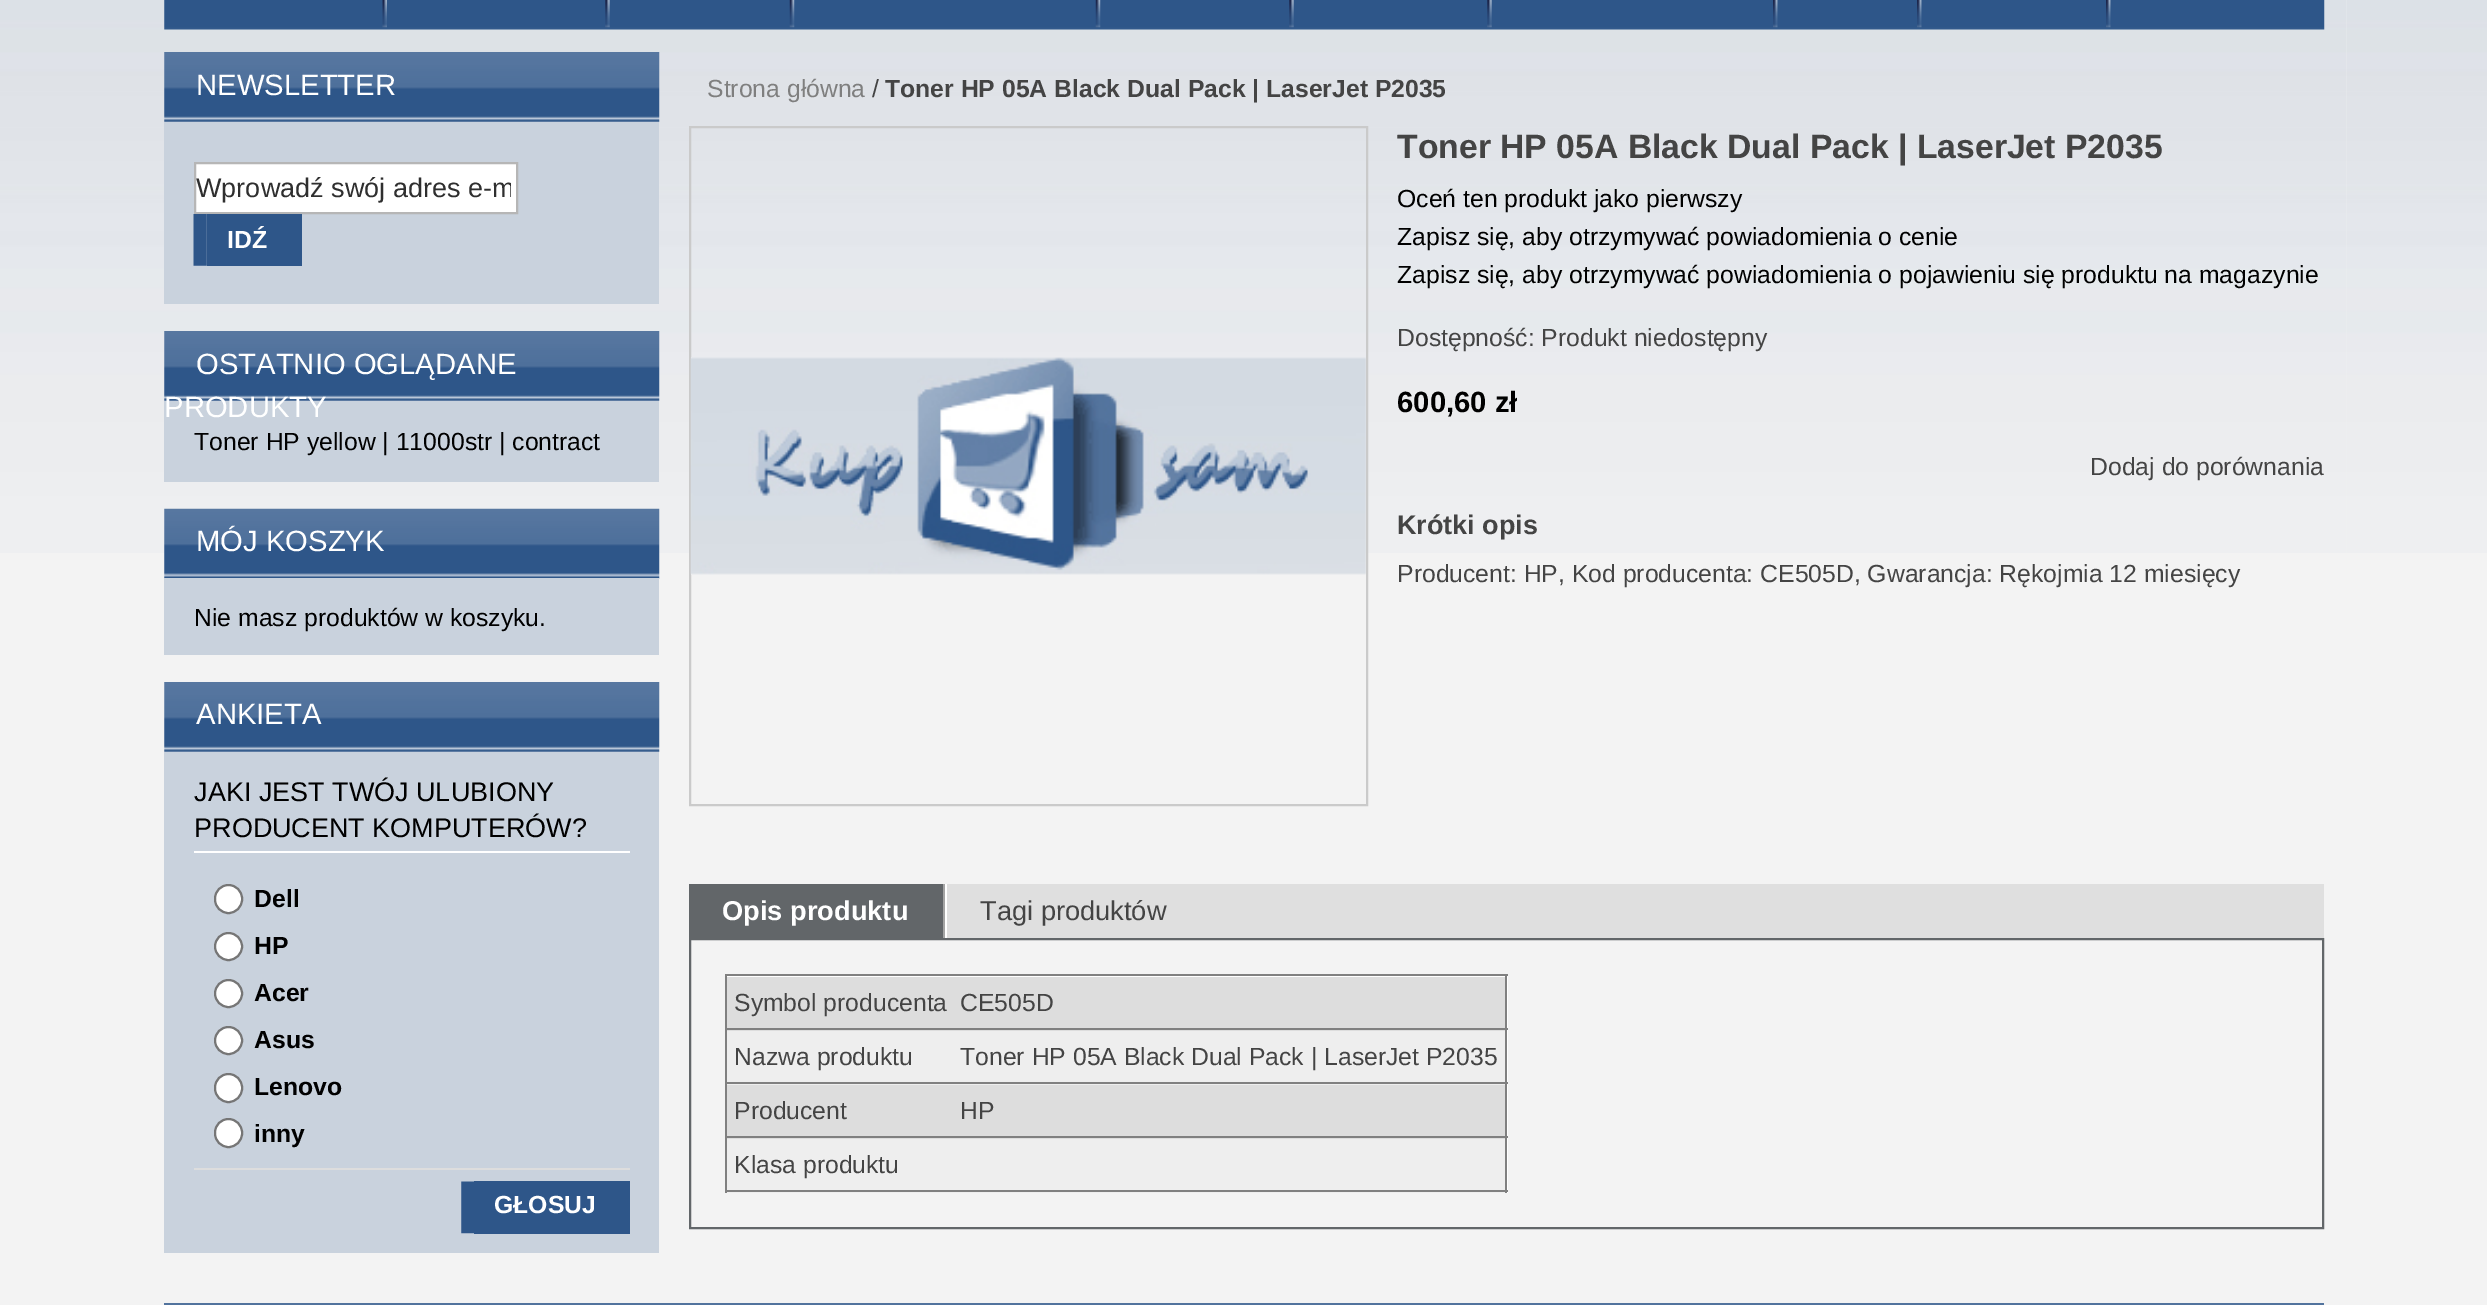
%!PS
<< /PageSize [2487 1305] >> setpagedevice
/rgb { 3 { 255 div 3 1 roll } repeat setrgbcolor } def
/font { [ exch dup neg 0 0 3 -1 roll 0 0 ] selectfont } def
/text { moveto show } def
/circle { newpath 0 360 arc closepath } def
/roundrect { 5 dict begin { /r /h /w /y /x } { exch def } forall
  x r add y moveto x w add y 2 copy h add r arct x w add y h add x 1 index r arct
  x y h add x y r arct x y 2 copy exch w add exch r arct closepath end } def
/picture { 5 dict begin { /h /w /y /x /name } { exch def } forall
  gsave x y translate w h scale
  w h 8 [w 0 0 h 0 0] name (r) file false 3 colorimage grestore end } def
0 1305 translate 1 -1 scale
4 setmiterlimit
243 243 243 rgb
0 0 2487 1305 rectfill
(img_01.rgb) 0 0 2487 553 picture
142 0 2205 553 rectfill
(img_02.rgb) 142 0 2205 553 picture
(img_03.rgb) 164 0 2161 30 picture
(img_04.rgb) 382 0 5 28 picture
(img_05.rgb) 605 0 5 28 picture
(img_06.rgb) 789 0 6 28 picture
(img_06.rgb) 1095 0 6 28 picture
(img_05.rgb) 1289 0 5 28 picture
(img_05.rgb) 1487 0 5 28 picture
(img_07.rgb) 1773 0 5 28 picture
(img_07.rgb) 1917 0 5 28 picture
(img_07.rgb) 2106 0 5 28 picture
(img_08.rgb) 164 52 496 70 picture
201 210 221 rgb
164 122 495 182 rectfill
255 255 255 rgb
195 163 moveto 322 0 rlineto 0 50 rlineto -322 0 rlineto closepath gsave fill grestore
182 182 182 rgb
2 setlinewidth
stroke
(img_09.rgb) 193 214 14 52 picture
46 86 137 rgb
207 214 95 52 rectfill
(img_10.rgb) 164 331 496 70 picture
201 210 221 rgb
164 401 495 81 rectfill
(img_11.rgb) 164 508 496 71 picture
164 578 495 77 rectfill
(img_12.rgb) 164 682 496 70 picture
164 752 495 501 rectfill
255 255 255 rgb
194 851 436 2 rectfill
215 885 27 28 13.5 roundrect gsave fill grestore
118 118 118 rgb
stroke
255 255 255 rgb
228.5 946.5 13.5 circle gsave fill grestore
118 118 118 rgb
stroke
255 255 255 rgb
228.5 993.5 13.5 circle gsave fill grestore
118 118 118 rgb
stroke
255 255 255 rgb
228.5 1040.5 13.5 circle gsave fill grestore
118 118 118 rgb
stroke
255 255 255 rgb
215 1074 27 28 13.5 roundrect gsave fill grestore
118 118 118 rgb
stroke
255 255 255 rgb
215 1119 27 28 13.5 roundrect gsave fill grestore
118 118 118 rgb
stroke
221 221 221 rgb
194 1168 436 2 rectfill
(img_13.rgb) 461 1181 13 53 picture
46 86 137 rgb
474 1181 156 53 rectfill
202 202 202 rgb
690 127 677 678 rectstroke
(img_14.rgb) 690 357 676 218 picture
223 223 223 rgb
947 884 1377 54 rectfill
164 164 164 rgb
943 884 2 54 rectfill
98 102 105 rgb
689 884 254 54 rectfill
255 255 255 rgb
945 884 2 54 rectfill
98 102 105 rgb
690 939 1633 289 rectstroke
255 255 255 rgb
727 976 781 217 rectfill
221 221 221 rgb
727 977 778 54 rectfill
128 128 128 rgb
725 974 783 2 rectfill
725 1028 783 2 rectfill
238 238 238 rgb
727 1031 778 54 rectfill
128 128 128 rgb
725 1082 783 2 rectfill
221 221 221 rgb
727 1085 778 54 rectfill
128 128 128 rgb
725 1136 783 2 rectfill
1505 1136 2 57 rectfill
1505 1082 2 57 rectfill
1505 1028 2 57 rectfill
1505 974 2 57 rectfill
238 238 238 rgb
727 1139 778 54 rectfill
128 128 128 rgb
725 1190 783 2 rectfill
725 1136 2 57 rectfill
725 1082 2 57 rectfill
725 1028 2 57 rectfill
725 974 2 57 rectfill
82 115 157 rgb
164 1303 2160 2 rectfill
/LiberationSans-Regular 29.25 font
255 255 255 rgb
(NEWSLETTER) 196 95 text
gsave
196 173 315 32 rectclip
/LiberationSans-Regular 27 font
47 47 47 rgb
(Wprowadź swój adres e-m) 196 197 text
grestore
/LiberationSans-Bold 24.75 font
(IDŹ) 227 248 text
/LiberationSans-Regular 29.25 font
(OSTATNIO OGLĄDANE) 196 374 text
(PRODUKTY) 164 417 text
/LiberationSans-Regular 24.75 font
0 0 0 rgb
(Toner HP yellow | 11000str | contract) 194 450 text
/LiberationSans-Regular 29.25 font
255 255 255 rgb
(MÓJ KOSZYK) 196 551 text
/LiberationSans-Regular 24.75 font
0 0 0 rgb
(Nie masz produktów w koszyku.) 194 626 text
/LiberationSans-Regular 29.25 font
255 255 255 rgb
(ANKIETA) 196 724 text
/LiberationSans-Regular 27 font
0 0 0 rgb
(JAKI JEST TWÓJ ULUBIONY) 194 801 text
(PRODUCENT KOMPUTERÓW?) 194 837 text
/LiberationSans-Bold 24.75 font
(Dell) 254 907 text
(HP) 254 954 text
(Acer) 254 1001 text
(Asus) 254 1048 text
(Lenovo) 254 1095 text
(inny) 254 1142 text
255 255 255 rgb
(GŁOSUJ) 494 1213 text
/LiberationSans-Regular 24.75 font
127 127 127 rgb
(Strona główna) 707 97 text
68 68 68 rgb
(/) 872 97 text
/LiberationSans-Bold 24.75 font
(Toner HP 05A Black Dual Pack | LaserJet P2035) 885 97 text
/LiberationSans-Bold 33.75 font
(Toner HP 05A Black Dual Pack | LaserJet P2035) 1397 158 text
/LiberationSans-Regular 24.75 font
0 0 0 rgb
(Oceń ten produkt jako pierwszy) 1397 207 text
(Zapisz się, aby otrzymywać powiadomienia o cenie) 1397 245 text
(Zapisz się, aby otrzymywać powiadomienia o pojawieniu się produktu na magazynie) 1397 283 text
68 68 68 rgb
(Dostępność: Produkt niedostępny) 1397 346 text
/LiberationSans-Bold 29.25 font
0 0 0 rgb
(600,60 zł) 1397 412 text
/LiberationSans-Regular 24.75 font
68 68 68 rgb
(Dodaj do porównania) 2090 475 text
/LiberationSans-Bold 27 font
(Krótki opis) 1397 534 text
/LiberationSans-Regular 24.75 font
(Producent: HP, Kod producenta: CE505D, Gwarancja: Rękojmia 12 miesięcy) 1397 582 text
/LiberationSans-Bold 27.25 font
255 255 255 rgb
(Opis produktu) 722 920 text
/LiberationSans-Regular 27.25 font
68 68 68 rgb
(Tagi produktów) 980 920 text
/LiberationSans-Regular 24.75 font
(Symbol producenta) 734 1011 text
(CE505D) 960 1011 text
(Nazwa produktu) 734 1065 text
(Toner HP 05A Black Dual Pack | LaserJet P2035) 960 1065 text
(Producent) 734 1119 text
(HP) 960 1119 text
(Klasa produktu) 734 1173 text
showpage
